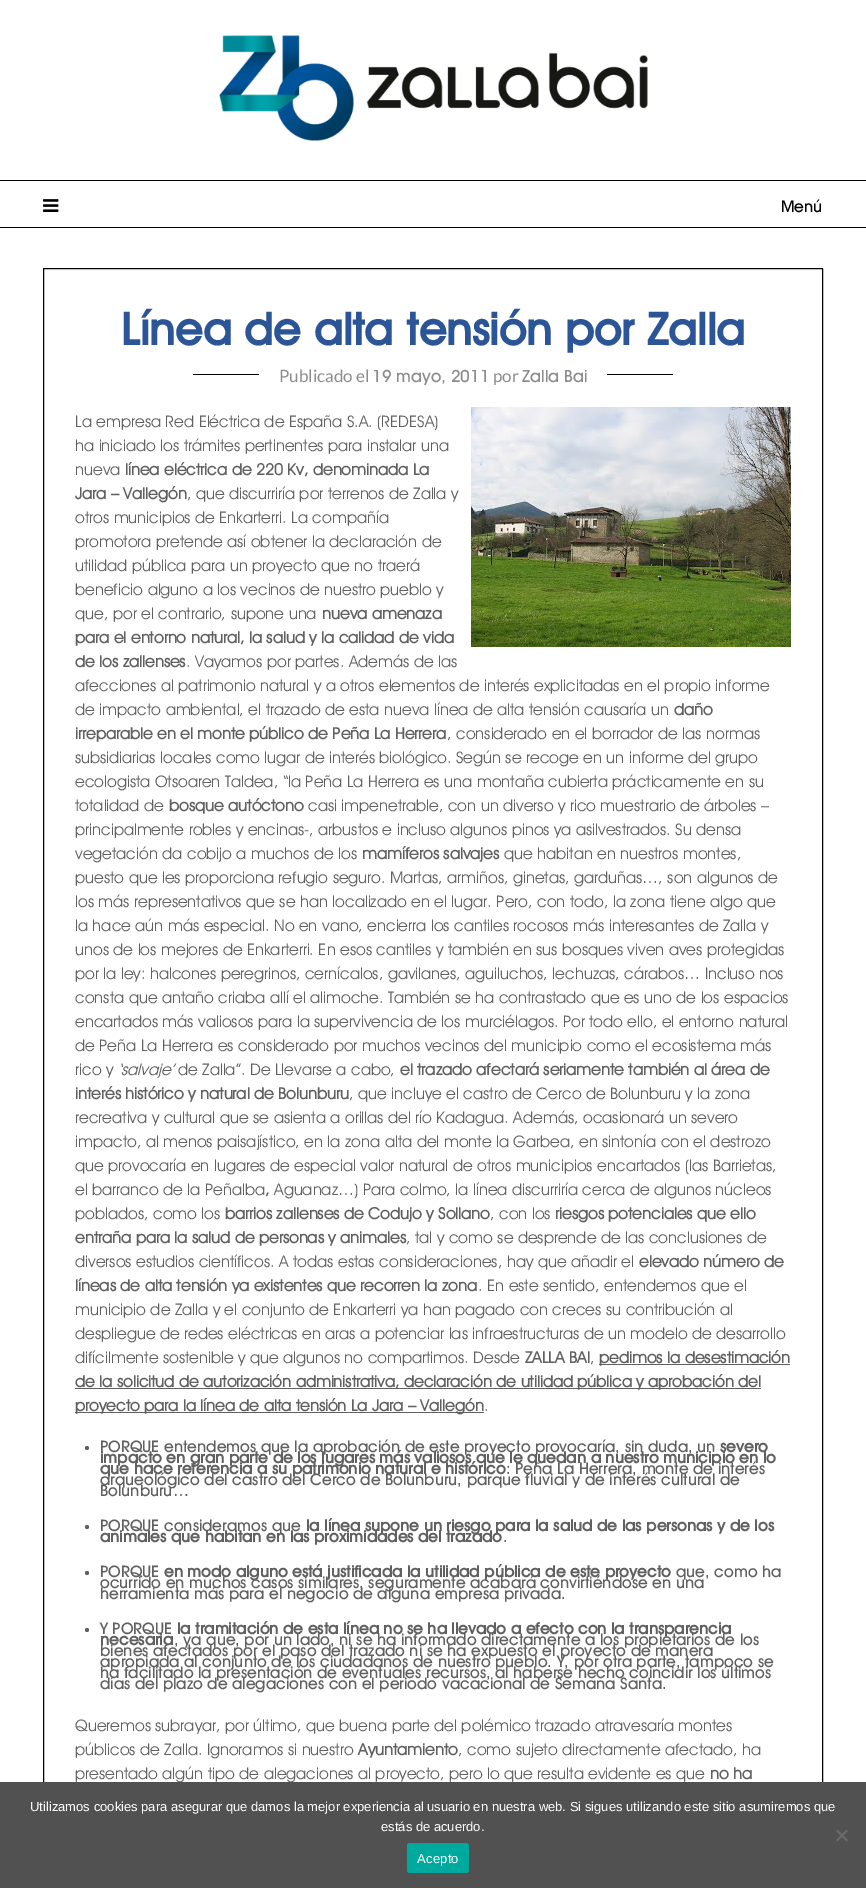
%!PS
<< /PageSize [866 1888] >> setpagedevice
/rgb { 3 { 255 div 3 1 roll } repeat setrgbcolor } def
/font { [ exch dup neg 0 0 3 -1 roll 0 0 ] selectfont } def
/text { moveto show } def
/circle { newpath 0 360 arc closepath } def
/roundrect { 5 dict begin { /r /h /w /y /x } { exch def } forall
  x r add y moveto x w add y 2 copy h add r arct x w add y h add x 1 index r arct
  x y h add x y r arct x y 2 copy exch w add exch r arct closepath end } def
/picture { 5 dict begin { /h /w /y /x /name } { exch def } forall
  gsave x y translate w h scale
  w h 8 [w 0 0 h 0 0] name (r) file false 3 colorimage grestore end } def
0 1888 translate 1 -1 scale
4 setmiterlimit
255 255 255 rgb
0 0 866 1888 rectfill
(img_01.rgb) 219 35 429 106 picture
0 0 0 rgb
0 180 866 1 rectfill
0 227 866 1 rectfill
(img_02.rgb) 43 199 16 13 picture
43.5 268.5 779 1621 0.5 roundrect stroke
193 374 480 1 rectfill
255 255 255 rgb
259 374 348 1 rectfill
(img_03.rgb) 471 407 320 240 picture
96 96 96 rgb
599 1364 191 1 rectfill
75 1388 686 1 rectfill
75 1412 409 1 rectfill
87 1448 2 circle fill
87 1527 2 circle fill
87 1573 2 circle fill
87 1630 2 circle fill
/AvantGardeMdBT-Medium 16 font
0 0 0 rgb
(Menú) 781 212 text
/AvantGardeMdBT-Bold 45 font
43 85 151 rgb
(Línea de alta tensión por Zalla) 121 345 text
/Lato-Regular 17 font
140 140 140 rgb
(Publicado el) 279 382 text
/AvantGardeMdBT-Medium 17 font
(19 mayo, 2011) 372 382 text
/Lato-Regular 17 font
(por) 493 382 text
/AvantGardeMdBT-Medium 17 font
(Zalla Bai) 522 382 text
/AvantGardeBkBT-Regular 16 font
96 96 96 rgb
(La empresa Red Eléctrica de España S.A. \(REDESA\)) 75 427 text
(ha iniciado los trámites pertinentes para instalar una) 75 451 text
(nueva) 75 475 text
/AvantGardeBkBT-Bold 16 font
(línea eléctrica de 220 Kv, denominada La) 125 475 text
(Jara – Vallegón) 75 499 text
/AvantGardeBkBT-Regular 16 font
(, que discurriría por terrenos de Zalla y) 187 499 text
(otros municipios de Enkarterri. La compañía) 75 523 text
(promotora pretende así obtener la declaración de) 75 547 text
(utilidad pública para un proyecto que no traerá) 75 571 text
(beneficio alguno a los vecinos de nuestro pueblo y) 75 595 text
(que, por el contrario, supone una) 75 619 text
/AvantGardeBkBT-Bold 16 font
(nueva amenaza) 322 619 text
(para el entorno natural, la salud y la calidad de vida) 75 643 text
(de los zallenses) 75 667 text
/AvantGardeBkBT-Regular 16 font
(. Vayamos por partes. Además de las) 186 667 text
(afecciones al patrimonio natural y a otros elementos de interés explicitadas en el propio informe) 75 691 text
(de impacto ambiental, el trazado de esta nueva línea de alta tensión causaría un) 75 715 text
/AvantGardeBkBT-Bold 16 font
(daño) 674 715 text
(irreparable en el monte público de Peña La Herrera) 75 739 text
/AvantGardeBkBT-Regular 16 font
(, considerado en el borrador de las normas) 447 739 text
(subsidiarias locales como lugar de interés biológico. Según se recoge en un informe del grupo) 75 763 text
(ecologista Otsoaren Taldea, “la Peña La Herrera es una montaña cubierta prácticamente en su) 75 787 text
(totalidad de) 75 811 text
/AvantGardeBkBT-Bold 16 font
(bosque autóctono) 169 811 text
/AvantGardeBkBT-Regular 16 font
(casi impenetrable, con un diverso y rico muestrario de árboles –) 308 811 text
(principalmente robles y encinas-, arbustos e incluso algunos pinos ya asilvestrados. Su densa) 75 835 text
(vegetación da cobijo a muchos de los) 75 859 text
/AvantGardeBkBT-Bold 16 font
(mamíferos salvajes) 362 859 text
/AvantGardeBkBT-Regular 16 font
(que habitan en nuestros montes,) 504 859 text
(puesto que les proporciona refugio seguro. Martas, armiños, ginetas, garduñas…, son algunos de) 75 883 text
(los más representativos que se han localizado en el lugar. Pero, con todo, la zona tiene algo que) 75 907 text
(la hace aún más especial. No en vano, encierra los cantiles rocosos más interesantes de Zalla y) 75 931 text
(unos de los mejores de Enkarterri. En esos cantiles y también en sus bosques viven aves protegidas) 75 955 text
(por la ley: halcones peregrinos, cernícalos, gavilanes, aguiluchos, lechuzas, cárabos… Incluso nos) 75 979 text
(consta que antaño criaba allí el alimoche. También se ha contrastado que es uno de los espacios) 75 1003 text
(encartados más valiosos para la supervivencia de los murciélagos. Por todo ello, el entorno natural) 75 1027 text
(de Peña La Herrera es considerado por muchos vecinos del municipio como el ecosistema más) 75 1051 text
(rico y) 75 1075 text
/AvantGardeBkBT-Italic 16 font
(‘salvaje’) 118 1075 text
/AvantGardeBkBT-Regular 16 font
(de Zalla”. De Llevarse a cabo,) 178 1075 text
/AvantGardeBkBT-Bold 16 font
(el trazado afectará seriamente también al área de) 400 1075 text
(interés histórico y natural de Bolunburu) 75 1099 text
/AvantGardeBkBT-Regular 16 font
(, que incluye el castro de Cerco de Bolunburu y la zona) 349 1099 text
(recreativa y cultural que se asienta a orillas del río Kadagua. Además, ocasionará un severo) 75 1123 text
(impacto, al menos paisajístico, en la zona alta del monte la Garbea, en sintonía con el destrozo) 75 1147 text
(que provocaría en lugares de especial valor natural de otros municipios encartados \(las Barrietas,) 75 1171 text
(el barranco de la Peñalba) 75 1195 text
/AvantGardeBkBT-Bold 16 font
(,) 265 1195 text
/AvantGardeBkBT-Regular 16 font
(Aguanaz…\) Para colmo, la línea discurriría cerca de algunos núcleos) 274 1195 text
(poblados, como los) 75 1219 text
/AvantGardeBkBT-Bold 16 font
(barrios zallenses de Codujo y Sollano) 225 1219 text
/AvantGardeBkBT-Regular 16 font
(, con los) 490 1219 text
/AvantGardeBkBT-Bold 16 font
(riesgos potenciales que ello) 555 1219 text
(entraña para la salud de personas y animales) 75 1243 text
/AvantGardeBkBT-Regular 16 font
(, tal y como se desprende de las conclusiones de) 406 1243 text
(diversos estudios científicos. A todas estas consideraciones, hay que añadir el) 75 1267 text
/AvantGardeBkBT-Bold 16 font
(elevado número de) 639 1267 text
(líneas de alta tensión ya existentes que recorren la zona) 75 1291 text
/AvantGardeBkBT-Regular 16 font
(. En este sentido, entendemos que el) 478 1291 text
(municipio de Zalla y el conjunto de Enkarterri ya han pagado con creces su contribución al) 75 1315 text
(despliegue de redes eléctricas en aras a potenciar las infraestructuras de un modelo de desarrollo) 75 1339 text
(difícilmente sostenible y que algunos no compartimos. Desde) 75 1363 text
/AvantGardeBkBT-Bold 16 font
(ZALLA BAI) 525 1363 text
/AvantGardeBkBT-Regular 16 font
(,) 590 1363 text
/AvantGardeBkBT-Bold 16 font
(pedimos la desestimación) 599 1363 text
(de la solicitud de autorización administrativa, declaración de utilidad pública y aprobación del) 75 1387 text
(proyecto para la línea de alta tensión La Jara – Vallegón) 75 1411 text
/AvantGardeBkBT-Regular 16 font
(.) 484 1411 text
/AvantGardeMdBT-Medium 16 font
(PORQUE entendemos que la aprobación de este proyecto provocaría, sin duda, un) 100 1452 text
/AvantGardeMdBT-Bold 16 font
(severo) 720 1452 text
(impacto en gran parte de los lugares más valiosos que le quedan a nuestro municipio en lo) 100 1463 text
(que hace referencia a su patrimonio natural e histórico) 100 1474 text
/AvantGardeMdBT-Medium 16 font
(: Peña La Herrera, monte de interés) 506 1474 text
(arqueológico del castro del Cerco de Bolunburu, parque fluvial y de interés cultural de) 100 1485 text
(Bolunburu…) 100 1496 text
(PORQUE consideramos que) 100 1531 text
/AvantGardeMdBT-Bold 16 font
(la línea supone un riesgo para la salud de las personas y de los) 306 1531 text
(animales que habitan en las proximidades del trazado) 100 1542 text
/AvantGardeMdBT-Medium 16 font
(.) 503 1542 text
(PORQUE) 100 1577 text
/AvantGardeMdBT-Bold 16 font
(en modo alguno está justificada la utilidad pública de este proyecto) 164 1577 text
/AvantGardeMdBT-Medium 16 font
(que, como ha) 676 1577 text
(ocurrido en muchos casos similares, seguramente acabará convirtiéndose en una) 100 1588 text
(herramienta más para el negocio de alguna empresa privada.) 100 1599 text
(Y PORQUE) 100 1634 text
/AvantGardeMdBT-Bold 16 font
(la tramitación de esta línea no se ha llevado a efecto con la transparencia) 177 1634 text
(necesaria) 100 1645 text
/AvantGardeMdBT-Medium 16 font
(, ya que, por un lado, ni se ha informado directamente a los propietarios de los) 174 1645 text
(bienes afectados por el paso del trazado ni se ha expuesto el proyecto de manera) 100 1656 text
(apropiada al conjunto de los ciudadanos de nuestro pueblo. Y, por otra parte, tampoco se) 100 1667 text
(ha facilitado la presentación de eventuales recursos, al haberse hecho coincidir los últimos) 100 1678 text
(días del plazo de alegaciones con el periodo vacacional de Semana Santa.) 100 1689 text
/AvantGardeBkBT-Regular 16 font
(Queremos subrayar, por último, que buena parte del polémico trazado atravesaría montes) 75 1731 text
(públicos de Zalla. Ignoramos si nuestro) 75 1755 text
/AvantGardeBkBT-Bold 16 font
(Ayuntamiento) 358 1755 text
/AvantGardeBkBT-Regular 16 font
(, como sujeto directamente afectado, ha) 458 1755 text
(presentado algún tipo de alegaciones al proyecto, pero lo que resulta evidente es que) 75 1779 text
/AvantGardeBkBT-Bold 16 font
(no ha) 710 1779 text
81 81 81 rgb
0 1782 866 106 rectfill
/LiberationSans-Regular 13 font
255 255 255 rgb
(Utilizamos cookies para asegurar que damos la mejor experiencia al usuario en nuestra web. Si sigues utilizando este sitio asumiremos que) 30 1811 text
(estás de acuerdo.) 381 1831 text
105 105 105 rgb
846.5 1829.5 moveto 1.5 1.5 rlineto -10.5 10.5 rlineto -1.5 -1.5 rlineto closepath fill
836 1831 moveto 1.5 -1.5 rlineto 10.5 10.5 rlineto -1.5 1.5 rlineto closepath fill
0 169 157 rgb
407 1843 62 30 3 roundrect fill
255 255 255 rgb
417 1863 moveto 0.25 0 (Acepto) ashow
showpage
